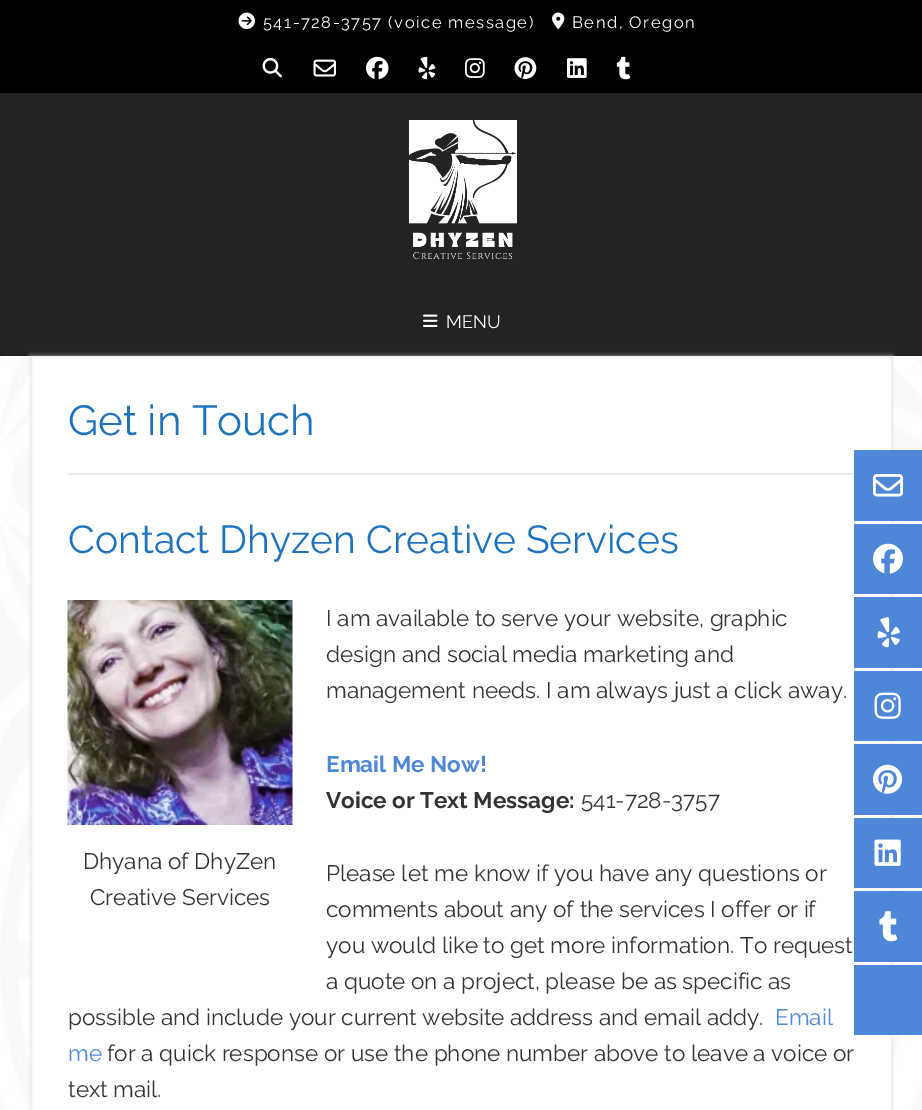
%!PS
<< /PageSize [922 1110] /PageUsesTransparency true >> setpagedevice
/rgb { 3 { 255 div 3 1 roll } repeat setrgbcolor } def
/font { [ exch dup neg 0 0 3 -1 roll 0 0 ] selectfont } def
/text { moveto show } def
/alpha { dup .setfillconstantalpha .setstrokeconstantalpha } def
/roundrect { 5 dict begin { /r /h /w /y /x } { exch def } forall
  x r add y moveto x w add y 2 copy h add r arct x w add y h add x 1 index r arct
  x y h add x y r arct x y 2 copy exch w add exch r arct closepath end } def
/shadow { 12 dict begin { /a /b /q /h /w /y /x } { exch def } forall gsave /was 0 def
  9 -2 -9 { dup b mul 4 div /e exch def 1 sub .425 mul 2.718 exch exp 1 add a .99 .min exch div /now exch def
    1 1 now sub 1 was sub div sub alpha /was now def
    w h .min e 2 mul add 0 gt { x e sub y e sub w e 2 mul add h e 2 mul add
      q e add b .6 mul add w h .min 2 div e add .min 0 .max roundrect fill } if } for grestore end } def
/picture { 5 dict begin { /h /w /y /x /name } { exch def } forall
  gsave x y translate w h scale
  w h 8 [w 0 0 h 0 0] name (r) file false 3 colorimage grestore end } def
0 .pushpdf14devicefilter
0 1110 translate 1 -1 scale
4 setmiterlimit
255 255 255 rgb
0 0 922 1110 rectfill
(img_01.rgb) 0 356 922 754 picture
0 0 0 rgb
0 0 922 93 rectfill
(img_02.rgb) 238 12 17 18 picture
(img_03.rgb) 552 12 13 17 picture
35 35 35 rgb
0 93 922 261 rectfill
0.08 alpha
0 0 0 rgb
0 93 922 1 rectfill
1 alpha
(img_04.rgb) 262 57 20 21 picture
(img_05.rgb) 313 59 23 18 picture
(img_06.rgb) 366 56 23 24 picture
(img_07.rgb) 418 56 18 24 picture
(img_08.rgb) 465 58 20 20 picture
(img_09.rgb) 514 57 23 22 picture
(img_10.rgb) 567 58 20 20 picture
(img_11.rgb) 616 56 15 24 picture
32 32 32 rgb
0 354 922 2 rectfill
0 290 moveto 0 1 rlineto 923 0 rlineto 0 -196 rlineto -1 0 rlineto 0 195 rlineto closepath fill
(img_12.rgb) 408 120 109 140 picture
(img_13.rgb) 423 314 15 13 picture
238 238 238 rgb
30 356 863 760 0 2 0.72 shadow
255 255 255 rgb
31 357 moveto 861 0 rlineto 0 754 rlineto -861 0 rlineto closepath gsave fill grestore
240 240 240 rgb
2 setlinewidth
stroke
235 235 235 rgb
68 473 787 2 rectfill
(img_14.rgb) 67 600 226 225 picture
78 135 216 rgb
854 450 68 71 rectfill
(img_15.rgb) 873 474 30 23 picture
854 524 68 70 rectfill
(img_16.rgb) 873 543 30 31 picture
854 597 68 71 rectfill
(img_17.rgb) 877 617 23 31 picture
854 671 68 70 rectfill
(img_18.rgb) 874 692 27 27 picture
854 744 68 71 rectfill
(img_19.rgb) 873 764 30 30 picture
854 818 68 70 rectfill
(img_20.rgb) 874 839 27 27 picture
854 891 68 71 rectfill
(img_21.rgb) 879 911 19 31 picture
854 965 68 70 rectfill
/Raleway-Regular 16.5 font
255 255 255 rgb
263 28 moveto 1.5 0 (541-728-3757 \(voice message\)) ashow
572 28 moveto 1.5 0 (Bend, Oregon) ashow
/Raleway-Regular 18 font
(MENU) 446 328 text
/Raleway-Regular 42 font
30 115 190 rgb
(Get in Touch) 68 435 text
/Raleway-Regular 39 font
(Contact Dhyzen Creative Services) 68 553 text
/Raleway-Regular 22.5 font
51 51 51 rgb
(I am available to serve your website, graphic) 326 626 text
(design and social media marketing and) 326 662 text
(management needs. I am always just a click away.) 326 698 text
/Raleway-Bold 22.5 font
78 135 216 rgb
(Email Me Now!) 326 772 text
51 51 51 rgb
(Voice or Text Message:) 326 808 text
/Raleway-Regular 22.5 font
(541-728-3757) 581 808 text
(Dhyana of DhyZen) 83 869 text
(Creative Services) 90 905 text
(Please let me know if you have any questions or) 326 881 text
(comments about any of the services I offer or if) 326 917 text
(you would like to get more information. To request) 326 953 text
(a quote on a project, please be as specific as) 326 989 text
(possible and include your current website address and email addy.) 68 1025 text
78 135 216 rgb
(Email) 775 1025 text
(me) 68 1061 text
51 51 51 rgb
(for a quick response or use the phone number above to leave a voice or) 107 1061 text
(text mail.) 68 1097 text
.poppdf14devicefilter showpage
